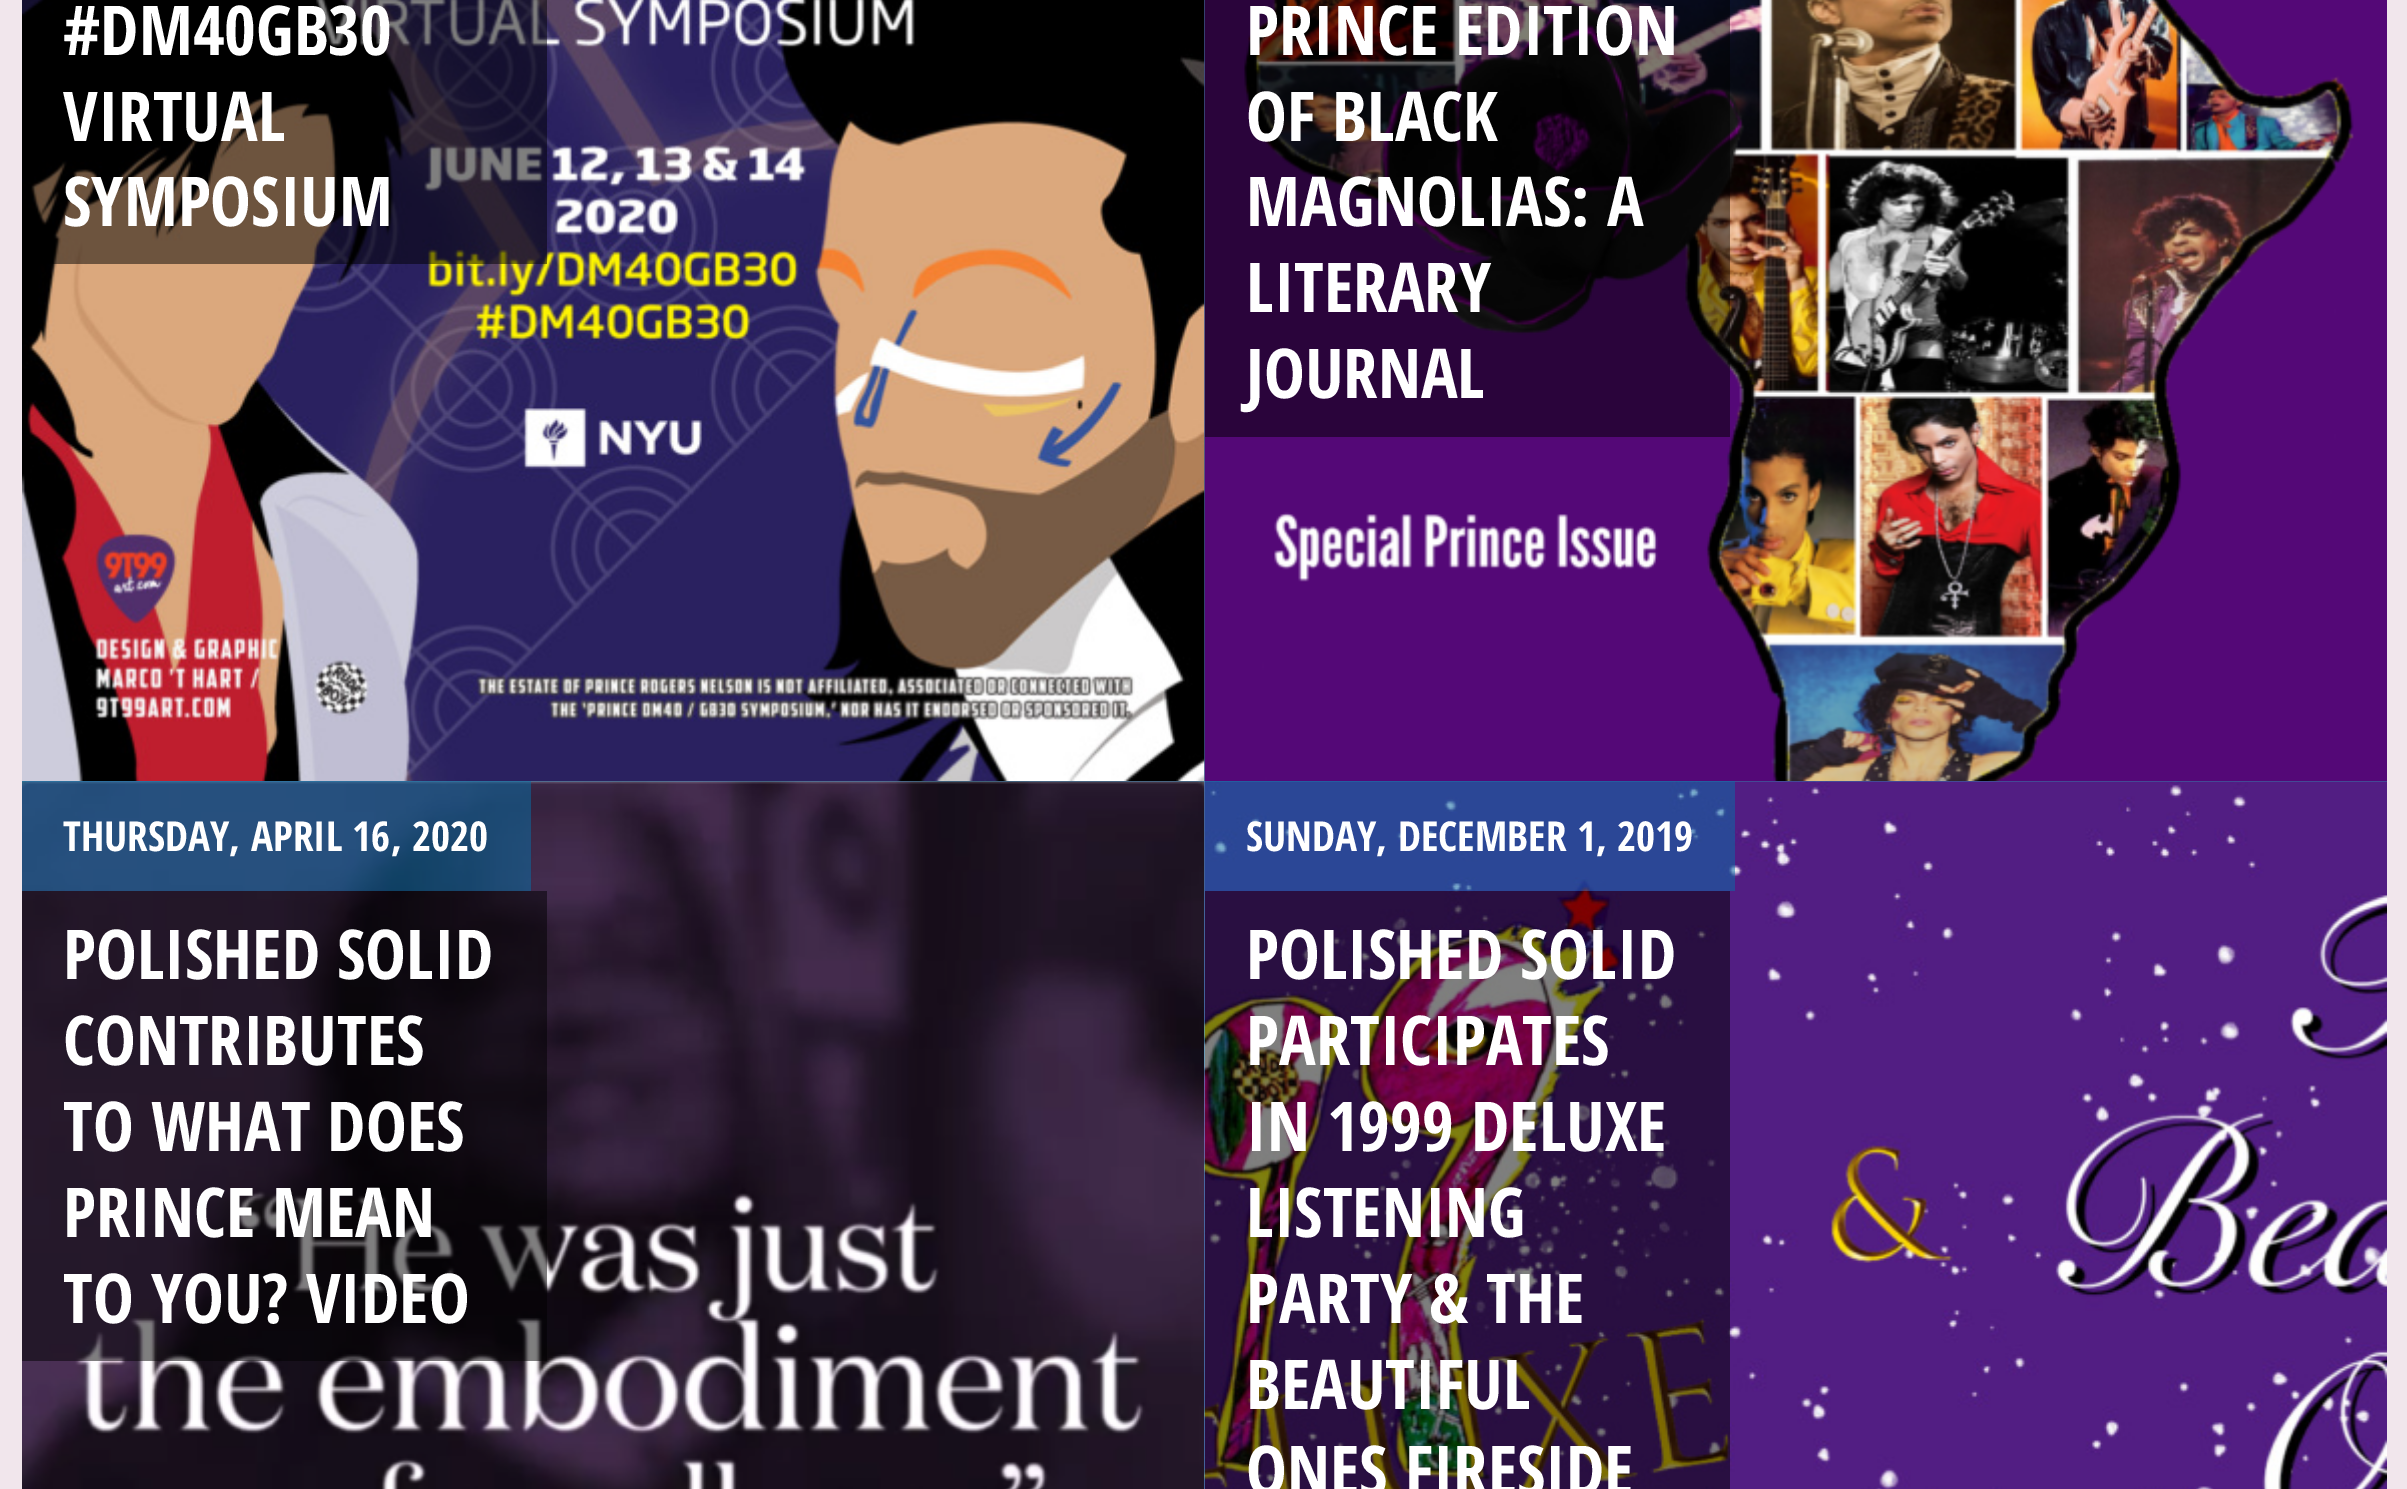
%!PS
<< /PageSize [2407 1489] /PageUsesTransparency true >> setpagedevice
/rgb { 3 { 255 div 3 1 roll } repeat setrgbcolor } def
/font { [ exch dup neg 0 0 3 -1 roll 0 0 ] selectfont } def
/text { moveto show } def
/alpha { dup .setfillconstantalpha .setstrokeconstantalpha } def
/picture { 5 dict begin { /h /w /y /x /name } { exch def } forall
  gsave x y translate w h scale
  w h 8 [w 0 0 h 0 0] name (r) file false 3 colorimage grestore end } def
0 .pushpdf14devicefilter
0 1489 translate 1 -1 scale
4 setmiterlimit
241 230 236 rgb
0 0 2407 1489 rectfill
55 113 143 rgb
1204 0 1 781 rectfill
(img_01.rgb) 22 0 1183 781 picture
0.5 alpha
0 0 0 rgb
22 0 525 264 rectfill
1 alpha
(img_02.rgb) 1204 0 1183 781 picture
0.5 alpha
1205 0 525 437 rectfill
1 alpha
73 157 201 rgb
22 781 1183 708 rectfill
(img_03.rgb) 22 781 1183 708 picture
0.5 alpha
5 112 168 rgb
22 781 509 110 rectfill
0 0 0 rgb
22 891 525 470 rectfill
1 alpha
51 131 173 rgb
1205 781 1182 1 rectfill
(img_04.rgb) 1204 781 1183 708 picture
0.5 alpha
5 112 168 rgb
1205 781 530 110 rectfill
0 0 0 rgb
1205 891 525 598 rectfill
/OpenSansCondensed-Bold 68.75 font
1 alpha
255 255 255 rgb
(#DM40GB30) 63 55 text
(VIRTUAL) 63 141 text
(SYMPOSIUM) 63 226 text
(PRINCE EDITION) 1246 55 text
(OF BLACK) 1246 141 text
(MAGNOLIAS: A) 1246 226 text
(LITERARY) 1246 312 text
(JOURNAL) 1246 398 text
/OpenSansCondensed-Bold 41.25 font
(THURSDAY, APRIL 16, 2020) 63 851 text
/OpenSansCondensed-Bold 68.75 font
(POLISHED SOLID) 63 979 text
(CONTRIBUTES) 63 1065 text
(TO WHAT DOES) 63 1151 text
(PRINCE MEAN) 63 1237 text
(TO YOU? VIDEO) 63 1323 text
/OpenSansCondensed-Bold 41.25 font
(SUNDAY, DECEMBER 1, 2019) 1246 851 text
/OpenSansCondensed-Bold 68.75 font
(POLISHED SOLID) 1246 979 text
(PARTICIPATES) 1246 1065 text
(IN 1999 DELUXE) 1246 1151 text
(LISTENING) 1246 1237 text
(PARTY & THE) 1246 1323 text
(BEAUTIFUL) 1246 1409 text
(ONES FIRESIDE) 1246 1495 text
.poppdf14devicefilter showpage
